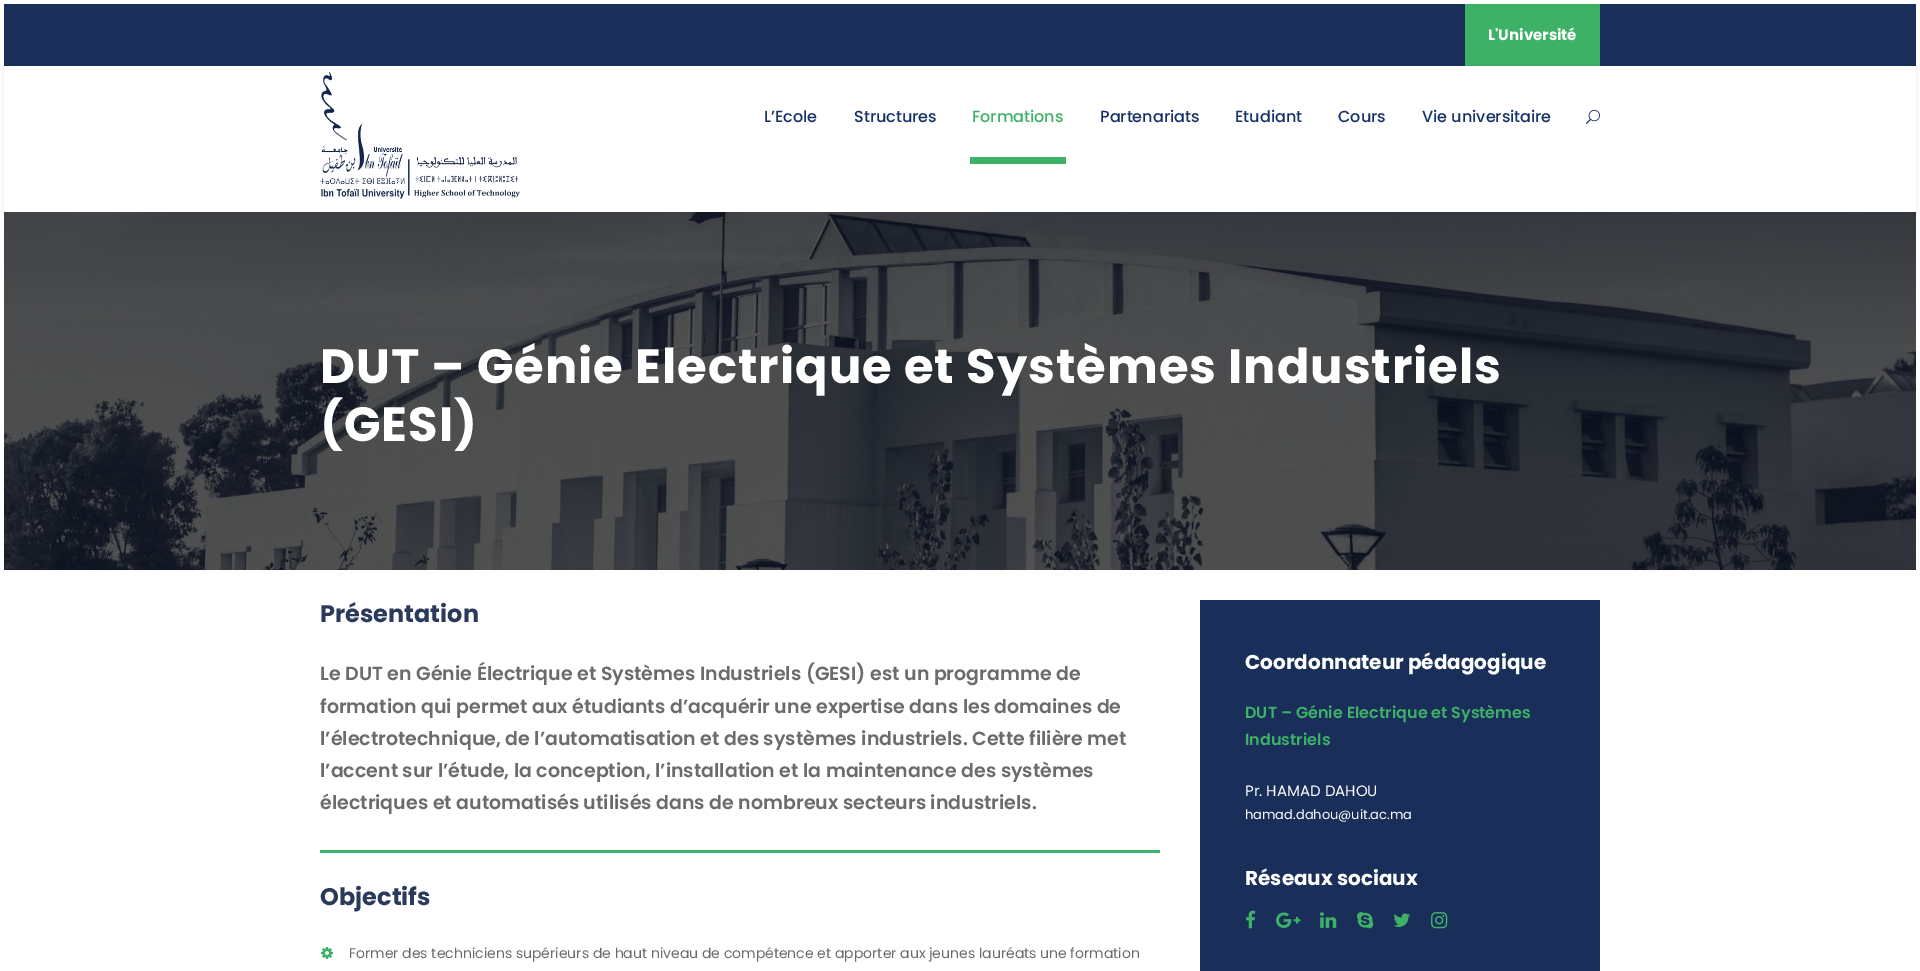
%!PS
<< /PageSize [1920 971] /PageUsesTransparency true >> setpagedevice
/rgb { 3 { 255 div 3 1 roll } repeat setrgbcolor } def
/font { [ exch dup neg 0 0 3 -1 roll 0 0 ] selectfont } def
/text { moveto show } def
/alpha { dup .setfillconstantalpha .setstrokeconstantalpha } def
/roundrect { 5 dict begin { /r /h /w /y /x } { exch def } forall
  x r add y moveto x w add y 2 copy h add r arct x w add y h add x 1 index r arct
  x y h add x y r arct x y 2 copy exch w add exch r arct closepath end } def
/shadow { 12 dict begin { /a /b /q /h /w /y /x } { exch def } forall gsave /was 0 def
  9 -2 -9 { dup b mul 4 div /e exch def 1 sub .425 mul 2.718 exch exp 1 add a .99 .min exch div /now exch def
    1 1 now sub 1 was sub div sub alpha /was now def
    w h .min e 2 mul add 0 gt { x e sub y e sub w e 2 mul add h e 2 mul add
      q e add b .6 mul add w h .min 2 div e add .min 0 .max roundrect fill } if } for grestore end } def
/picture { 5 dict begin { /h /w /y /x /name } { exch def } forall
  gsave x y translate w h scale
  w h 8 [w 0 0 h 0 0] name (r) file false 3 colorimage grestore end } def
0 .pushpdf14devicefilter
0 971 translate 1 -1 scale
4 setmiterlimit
255 255 255 rgb
0 0 1920 971 rectfill
25 47 89 rgb
4 4 1912 62 rectfill
61 177 102 rgb
1465 4 135 62 rectfill
0 0 0 rgb
4 67 1912 146 0 2 0.1 shadow
255 255 255 rgb
4 66 1912 146 rectfill
(img_01.rgb) 320 72 200 127 picture
61 177 102 rgb
970 157 96 7 rectfill
(img_02.rgb) 1586 109 14 15 picture
(img_03.rgb) 4 212 1912 358 picture
320 850 840 3 rectfill
(img_04.rgb) 321 947 12 12 picture
25 47 89 rgb
1200 600 400 371 rectfill
(img_05.rgb) 1246 910 10 19 picture
(img_06.rgb) 1276 912 25 16 picture
(img_07.rgb) 1320 912 17 16 picture
(img_08.rgb) 1357 912 17 17 picture
(img_09.rgb) 1393 913 17 14 picture
(img_10.rgb) 1431 912 17 17 picture
/Poppins-Bold 15 font
255 255 255 rgb
(L'Université) 1488 40 text
/Poppins-Medium 16 font
22 50 105 rgb
(L’Ecole) 764 122 text
(Structures) 854 122 text
61 177 102 rgb
(Formations) 972 122 text
22 50 105 rgb
(Partenariats) 1100 122 text
(Etudiant) 1235 122 text
(Cours) 1338 122 text
(Vie universitaire) 1422 122 text
/Poppins-Bold 48 font
255 255 255 rgb
320 383 moveto 1 0 (DUT – Génie Electrique et Systèmes Industriels) ashow
320 441 moveto 1 0 (\(GESI\)) ashow
/Poppins-Bold 24 font
41 58 91 rgb
(Présentation) 320 622 text
/Poppins-SemiBold 19 font
107 107 107 rgb
(Le DUT en Génie Électrique et Systèmes Industriels \(GESI\) est un programme de) 320 680 text
(formation qui permet aux étudiants d’acquérir une expertise dans les domaines de) 320 713 text
(l’électrotechnique, de l’automatisation et des systèmes industriels. Cette filière met) 320 745 text
(l’accent sur l’étude, la conception, l’installation et la maintenance des systèmes) 320 777 text
(électriques et automatisés utilisés dans de nombreux secteurs industriels.) 320 809 text
/Poppins-Bold 24 font
41 58 91 rgb
(Objectifs) 320 905 text
/Poppins-Regular 14 font
107 107 107 rgb
(Former des techniciens supérieurs de haut niveau de compétence et apporter aux jeunes lauréats une formation) 349 958 text
/Poppins-Bold 20 font
255 255 255 rgb
(Coordonnateur pédagogique) 1245 669 text
/Poppins-SemiBold 16 font
61 177 102 rgb
(DUT – Génie Electrique et Systèmes) 1245 718 text
(Industriels) 1245 745 text
/Poppins-Regular 15 font
255 255 255 rgb
(Pr. HAMAD DAHOU) 1245 796 text
/Poppins-Regular 13 font
(hamad.dahou@uit.ac.ma) 1245 819 text
/Poppins-Bold 20 font
(Réseaux sociaux) 1245 885 text
.poppdf14devicefilter showpage
